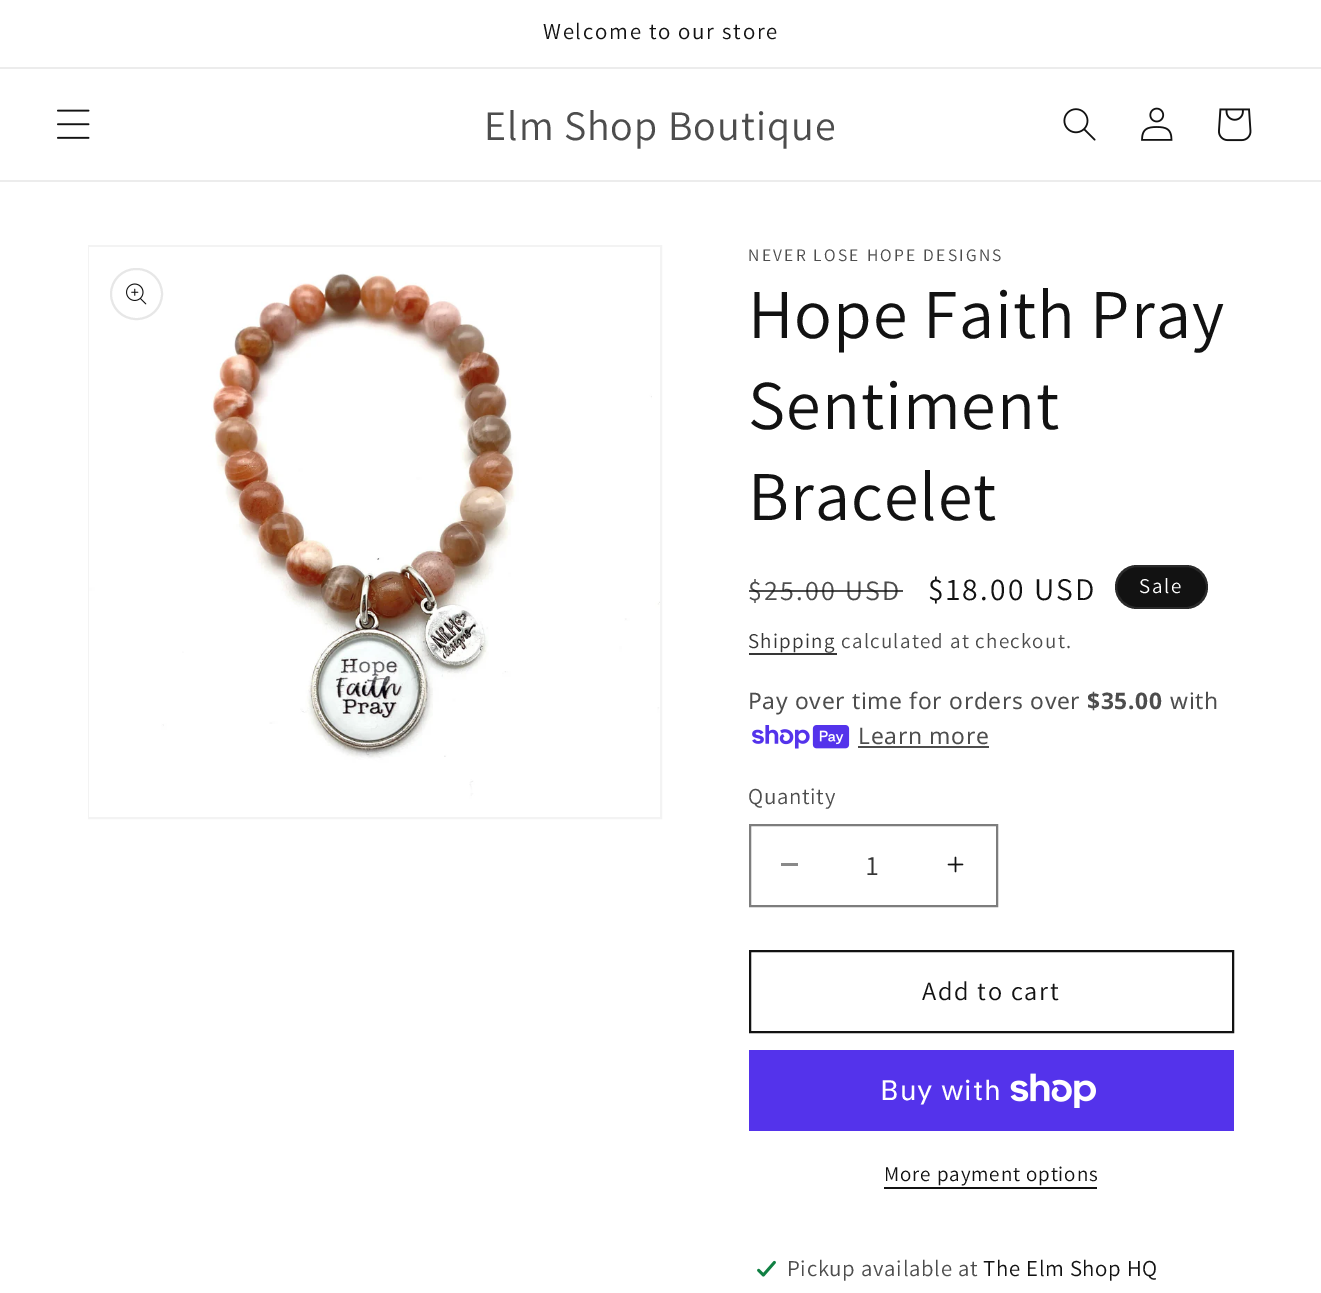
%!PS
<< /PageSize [1321 1293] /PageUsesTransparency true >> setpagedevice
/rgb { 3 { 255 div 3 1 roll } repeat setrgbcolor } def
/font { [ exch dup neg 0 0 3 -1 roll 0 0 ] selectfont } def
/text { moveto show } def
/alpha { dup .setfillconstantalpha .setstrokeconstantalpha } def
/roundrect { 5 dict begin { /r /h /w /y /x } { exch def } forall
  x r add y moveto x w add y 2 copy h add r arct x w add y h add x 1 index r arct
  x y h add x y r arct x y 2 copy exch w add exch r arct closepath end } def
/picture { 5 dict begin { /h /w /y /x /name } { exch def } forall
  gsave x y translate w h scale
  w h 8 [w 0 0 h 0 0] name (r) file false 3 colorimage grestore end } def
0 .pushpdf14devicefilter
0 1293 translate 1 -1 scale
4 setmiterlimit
255 255 255 rgb
0 0 1321 1293 rectfill
236 236 236 rgb
0 67 1321 2 rectfill
0 180 1321 2 rectfill
(img_01.rgb) 57 109 33 30 picture
(img_02.rgb) 1063 108 33 33 picture
(img_03.rgb) 1141 107 32 34 picture
(img_04.rgb) 1218 108 34 34 picture
243 243 243 rgb
2 setlinewidth
89 246 572 572 rectstroke
(img_05.rgb) 89 247 571 570 picture
231 231 231 rgb
111 269 51 50 25 roundrect stroke
(img_06.rgb) 126 283 21 22 picture
18 18 18 rgb
1115 565 93 44 22 roundrect fill
0.1 alpha
255 255 255 rgb
1116 566 91 42 21 roundrect stroke
1 alpha
54 54 54 rgb
749 653 88 2 rectfill
(img_07.rgb) 752 725 98 24 picture
77 77 77 rgb
858 746 131 2 rectfill
137 137 137 rgb
781 863 17 3 rectfill
(img_08.rgb) 947 856 17 17 picture
125 125 125 rgb
750 825 247 81 rectstroke
18 18 18 rgb
750 951 483 81 rectstroke
84 51 235 rgb
749 1050 485 81 rectfill
(img_09.rgb) 1010 1073 86 35 picture
18 18 18 rgb
884 1187 213 2 rectfill
(img_10.rgb) 757 1260 19 17 picture
/Assistant-Regular 22.75 font
543 39 moveto 1.75 0 (Welcome to our store) ashow
/Assistant-Regular 42 font
77 77 77 rgb
484 140 moveto 1 0 (Elm Shop Boutique) ashow
/Assistant-Regular 17.5 font
748 261 moveto 2.25 0 (NEVER LOSE HOPE DESIGNS) ashow
/Assistant-Regular 70 font
18 18 18 rgb
748 338 moveto 1 0 (Hope Faith Pray) ashow
748 429 moveto 1 0 (Sentiment) ashow
748 520 moveto 1 0 (Bracelet) ashow
/Assistant-Regular 28 font
77 77 77 rgb
748 600 moveto 2.25 0 ($25.00 USD) ashow
0.75 alpha
18 18 18 rgb
749 590 154 2 rectfill
/Assistant-Regular 31.5 font
1 alpha
928 600 moveto 2.25 0 ($18.00 USD) ashow
/Assistant-Regular 21 font
255 255 255 rgb
1139 593 moveto 1.75 0 (Sale) ashow
54 54 54 rgb
748 648 moveto 1.25 0 (Shipping) ashow
77 77 77 rgb
841 648 moveto 1.25 0 (calculated at checkout.) ashow
/NotoSans-Regular 22.75 font
748 709 moveto 0.7 0 (Pay over time for orders over) ashow
/NotoSans-Bold 22.75 font
1087 709 moveto 0.7 0 ($35.00) ashow
/NotoSans-Regular 22.75 font
1170 709 moveto 0.7 0 (with) ashow
858 744 moveto 0.7 0 (Learn more) ashow
/Assistant-Regular 22.75 font
748 804 moveto 0.7 0 (Quantity) ashow
/Assistant-Regular 28 font
54 54 54 rgb
(1) 866 875 text
/Assistant-Regular 26.25 font
18 18 18 rgb
922 1000 moveto 1.75 0 (Add to cart) ashow
/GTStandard-Regular 28 font
255 255 255 rgb
880 1100 moveto 1 0 (Buy with) ashow
/Assistant-Regular 21 font
18 18 18 rgb
884 1181 moveto 0.9 0 (More payment options) ashow
/Assistant-Regular 22.75 font
77 77 77 rgb
787 1276 moveto 0.7 0 (Pickup available at) ashow
18 18 18 rgb
983 1276 moveto 0.7 0 (The Elm Shop HQ) ashow
.poppdf14devicefilter showpage
